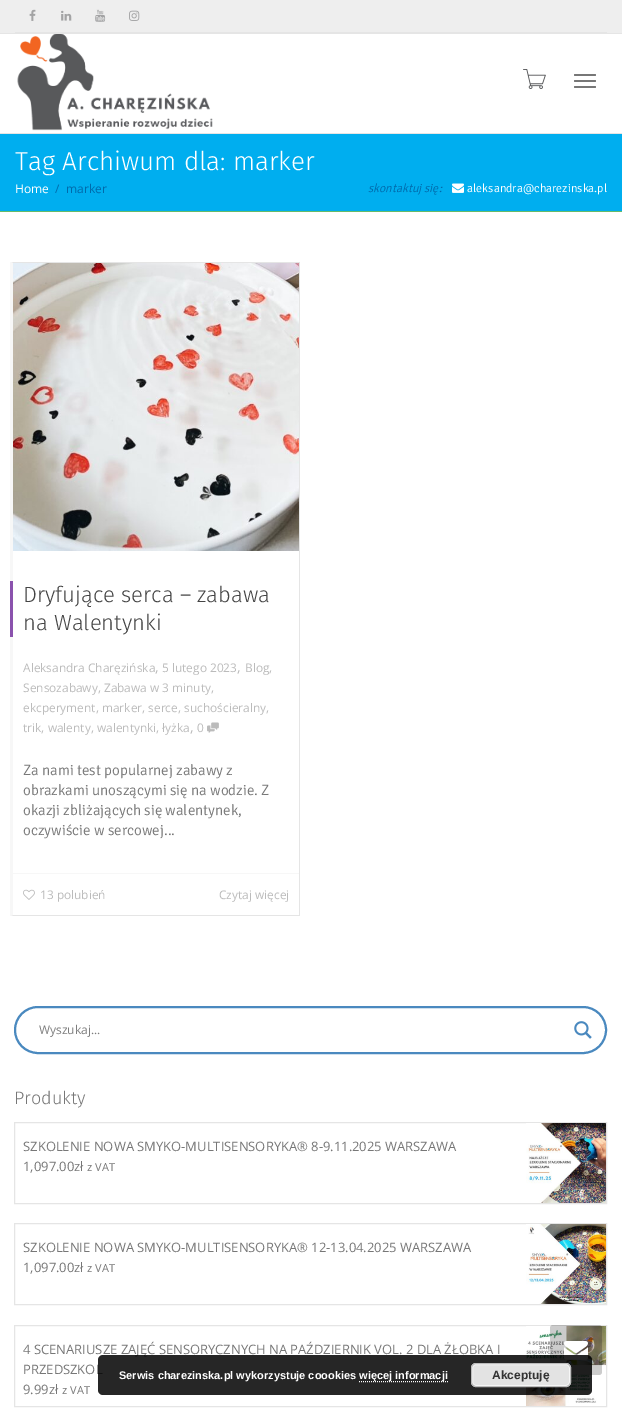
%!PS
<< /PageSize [622 1425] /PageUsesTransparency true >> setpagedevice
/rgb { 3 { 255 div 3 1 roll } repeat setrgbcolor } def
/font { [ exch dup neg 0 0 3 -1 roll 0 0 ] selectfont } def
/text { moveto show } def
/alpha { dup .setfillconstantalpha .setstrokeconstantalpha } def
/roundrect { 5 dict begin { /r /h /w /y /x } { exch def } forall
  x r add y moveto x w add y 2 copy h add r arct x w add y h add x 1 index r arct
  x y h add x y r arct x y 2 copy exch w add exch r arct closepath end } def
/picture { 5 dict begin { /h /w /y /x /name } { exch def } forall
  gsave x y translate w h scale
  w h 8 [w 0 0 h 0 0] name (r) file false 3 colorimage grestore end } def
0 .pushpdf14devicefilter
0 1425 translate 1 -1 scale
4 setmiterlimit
255 255 255 rgb
0 0 622 1425 rectfill
238 238 238 rgb
0 0 622 33 rectfill
229 229 229 rgb
0 33 622 1 rectfill
15 32 592 1 rectfill
(img_01.rgb) 29 9 7 12 picture
(img_02.rgb) 61 10 11 11 picture
(img_03.rgb) 95 9 11 13 picture
(img_04.rgb) 129 10 11 11 picture
0 133 622 1 rectfill
(img_05.rgb) 17 34 196 97 picture
(img_06.rgb) 523 69 23 20 picture
119 119 119 rgb
574 74 22 2 1 roundrect fill
574 80 22 2 1 roundrect fill
574 86 22 2 1 roundrect fill
0 174 239 rgb
0 134 622 77 rectfill
102 187 106 rgb
0 211 622 1 rectfill
(img_07.rgb) 452 183 12 10 picture
229 229 229 rgb
10 262 moveto 290 0 rlineto -1 1 rlineto -286 0 rlineto closepath fill
299 262 1 654 rectfill
300 916 moveto -290 0 rlineto 3 -1 rlineto 286 0 rlineto closepath fill
247 247 247 rgb
10 916 moveto 0 -654 rlineto 3 1 rlineto 0 652 rlineto closepath fill
(img_08.rgb) 13 263 286 288 picture
138 82 173 rgb
10 581 3 56 rectfill
(img_09.rgb) 207 722 12 11 picture
247 247 247 rgb
13 873 286 1 rectfill
(img_10.rgb) 23 889 12 11 picture
74 137 191 rgb
2 setlinewidth
15 1007 591 46 23 roundrect stroke
(img_11.rgb) 574 1021 18 18 picture
229 229 229 rgb
1 setlinewidth
14.5 1122.5 592 81 rectstroke
(img_12.rgb) 526 1123 80 80 picture
14.5 1223.5 592 81 rectstroke
(img_13.rgb) 526 1224 80 80 picture
14.5 1325.5 592 81 rectstroke
(img_14.rgb) 526 1326 80 80 picture
0.2 alpha
0 0 0 rgb
550 1325 52 50 3 roundrect fill
1 alpha
(img_15.rgb) 564 1341 24 19 picture
/FiraSans-Light 26 font
255 255 255 rgb
(Tag Archiwum dla: marker) 15 170 text
/OpenSans-Regular 12 font
(Home) 15 193 text
0 106 171 rgb
(/) 55 193 text
(marker) 66 193 text
/Signika-LightItalic 12 font
(skontaktuj się:) 368 192 text
/Signika-Light 12 font
255 255 255 rgb
(aleksandra@charezinska.pl) 467 192 text
/FiraSans-Light 22 font
68 68 68 rgb
(Dryfujące serca – zabawa) 23 602 text
(na Walentynki) 23 630 text
/OpenSans-Regular 11.9 font
187 187 187 rgb
(Aleksandra Charęzińska) 23 672 text
/OpenSans-Regular 14 font
(,) 155 672 text
/OpenSans-Regular 11.9 font
(5 lutego 2023) 162 672 text
/OpenSans-Regular 14 font
(,) 237 672 text
/OpenSans-Regular 11.9 font
(Blog,) 245 672 text
(Sensozabawy, Zabawa w 3 minuty,) 23 692 text
(ekcperyment, marker, serce, suchościeralny,) 23 712 text
(trik, walenty, walentynki, łyżka) 23 732 text
/OpenSans-Regular 14 font
(,) 190 732 text
/OpenSans-Regular 11.9 font
(0) 197 732 text
/Signika-Light 15 font
119 119 119 rgb
(Za nami test popularnej zabawy z) 23 775 text
(obrazkami unoszącymi się na wodzie. Z) 23 795 text
(okazji zbliżających się walentynek,) 23 815 text
(oczywiście w sercowej...) 23 835 text
/OpenSans-Regular 11.9 font
187 187 187 rgb
(13 polubień) 40 899 text
(Czytaj więcej) 219 899 text
/OpenSans-Regular 12 font
125 125 125 rgb
(Wyszukaj...) 39 1034 text
/FiraSans-Light 18 font
119 119 119 rgb
(Produkty) 14 1104 text
/OpenSans-Regular 13 font
(SZKOLENIE NOWA SMYKO-MULTISENSORYKA® 8-9.11.2025 WARSZAWA) 23 1151 text
(1,097.00zł) 23 1171 text
/OpenSans-Regular 11 font
(z VAT) 87 1171 text
/OpenSans-Regular 13 font
(SZKOLENIE NOWA SMYKO-MULTISENSORYKA® 12-13.04.2025 WARSZAWA) 23 1252 text
(1,097.00zł) 23 1272 text
/OpenSans-Regular 11 font
(z VAT) 87 1272 text
/OpenSans-Regular 13 font
(4 SCENARIUSZE ZAJĘĆ SENSORYCZNYCH NA PAŹDZIERNIK VOL. 2 DLA ŻŁOBKA I) 23 1354 text
(PRZEDSZKOL) 23 1374 text
(9.99zł) 23 1394 text
/OpenSans-Regular 11 font
(z VAT) 62 1394 text
0.85 alpha
0 0 0 rgb
98 1355 494 40 5 roundrect fill
/LiberationSans-Bold 11 font
1 alpha
255 255 255 rgb
(Serwis charezinska.pl wykorzystuje coookies) 119 1379 text
[1 1] 0 setdash
359 1381.5 moveto 89 0 rlineto stroke
(więcej informacji) 359 1379 text
227 227 227 rgb
471 1363 100 24 5 roundrect fill
246 246 246 rgb
[] 0 setdash
472.5 1364.5 97 21 3.5 roundrect stroke
187 187 187 rgb
471.5 1363.5 99 23 4.5 roundrect stroke
/LiberationSans-Bold 12 font
51 51 51 rgb
(Akceptuję) 492 1379 text
.poppdf14devicefilter showpage
